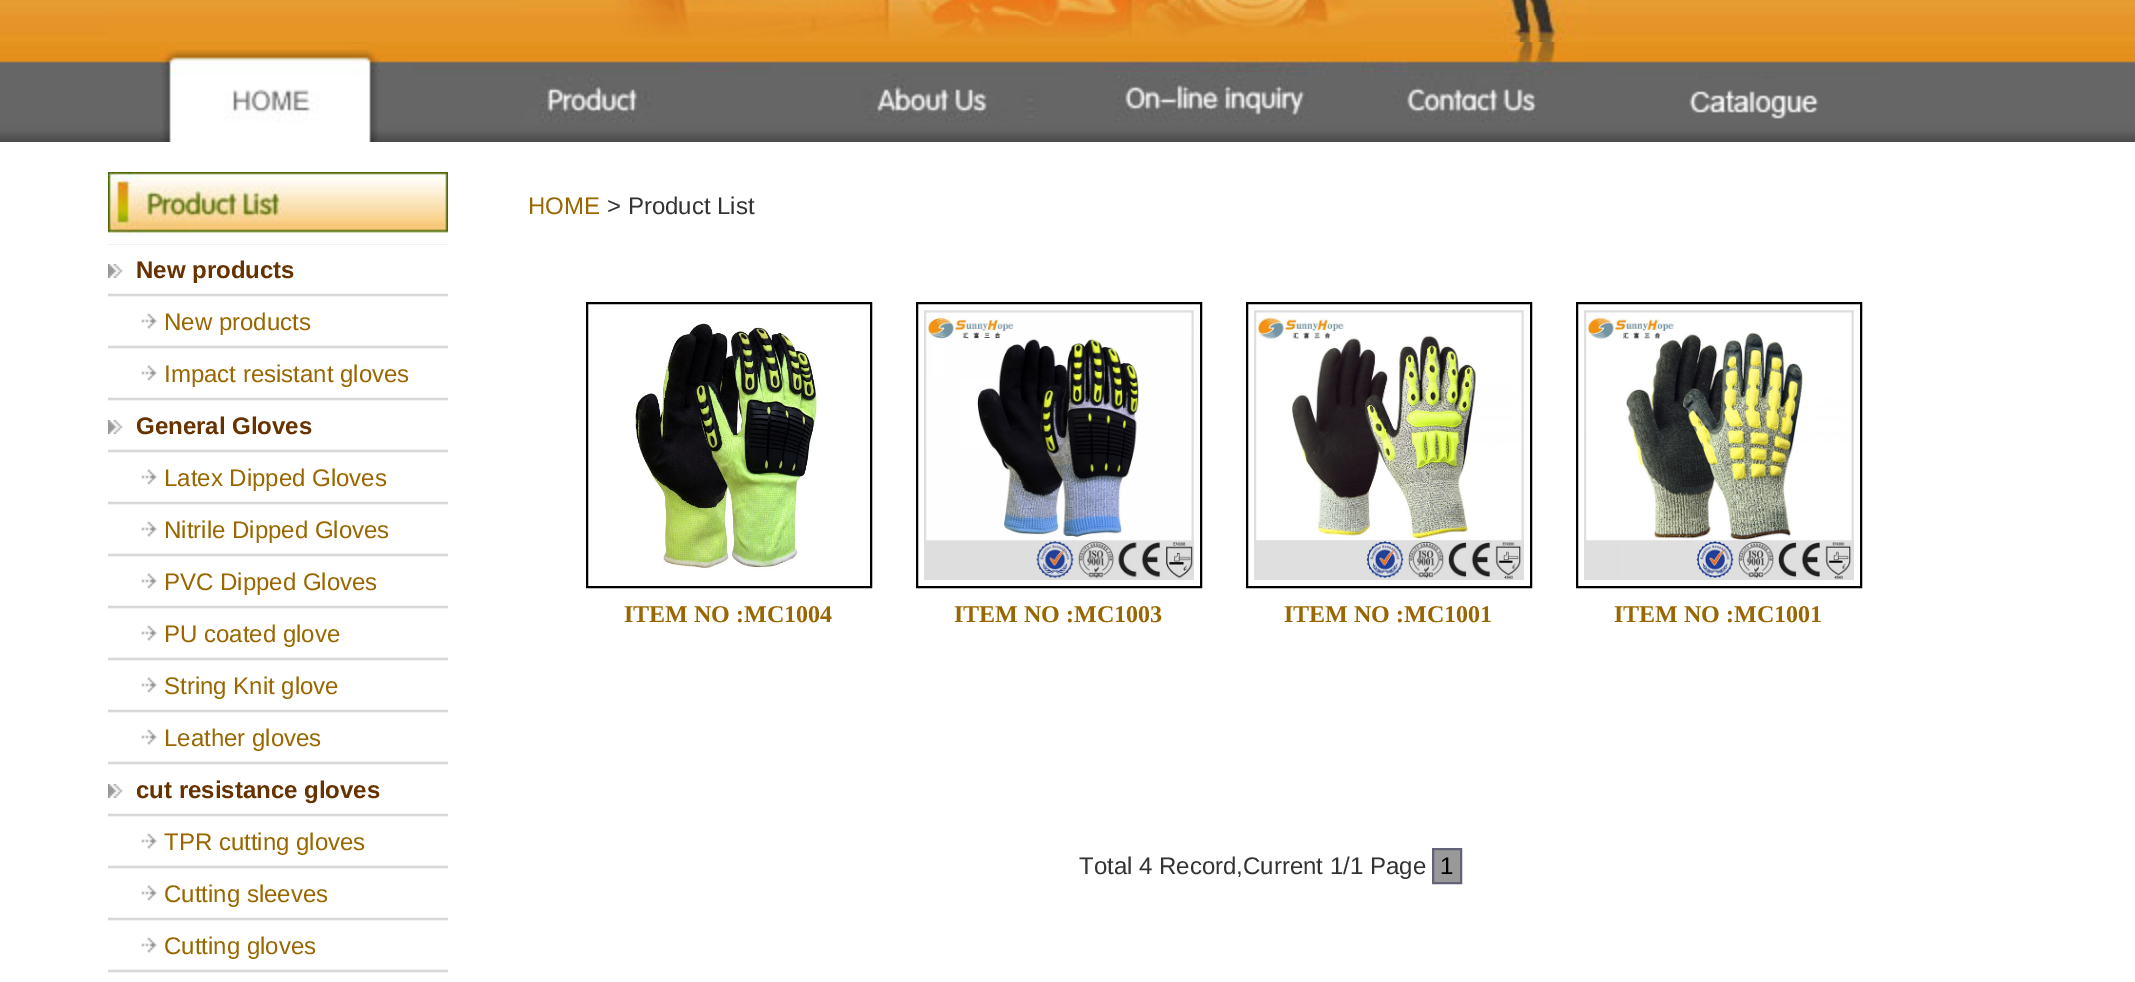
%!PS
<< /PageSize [2135 982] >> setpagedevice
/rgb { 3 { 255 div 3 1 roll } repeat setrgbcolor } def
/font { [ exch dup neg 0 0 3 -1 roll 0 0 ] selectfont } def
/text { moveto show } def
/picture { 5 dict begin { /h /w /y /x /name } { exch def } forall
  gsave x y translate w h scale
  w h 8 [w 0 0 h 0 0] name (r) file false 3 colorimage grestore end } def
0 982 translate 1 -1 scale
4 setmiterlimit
255 255 255 rgb
0 0 2135 982 rectfill
(img_01.rgb) 0 0 2135 142 picture
(img_02.rgb) 520 0 1068 12 picture
(img_03.rgb) 108 12 1480 30 picture
(img_04.rgb) 160 42 220 100 picture
(img_05.rgb) 412 60 360 62 picture
(img_06.rgb) 798 68 270 54 picture
(img_07.rgb) 1100 58 230 64 picture
(img_08.rgb) 1362 42 220 80 picture
(img_09.rgb) 1614 68 270 51 picture
(img_10.rgb) 108 172 340 64 picture
(img_11.rgb) 108 244 340 729 picture
(img_12.rgb) 108 264 15 14 picture
(img_13.rgb) 141 313 16 16 picture
(img_13.rgb) 141 365 16 16 picture
(img_12.rgb) 108 420 15 14 picture
(img_13.rgb) 141 469 16 16 picture
(img_13.rgb) 141 521 16 16 picture
(img_13.rgb) 141 573 16 16 picture
(img_13.rgb) 141 625 16 16 picture
(img_13.rgb) 141 677 16 16 picture
(img_13.rgb) 141 729 16 16 picture
(img_12.rgb) 108 784 15 14 picture
(img_13.rgb) 141 833 16 16 picture
(img_13.rgb) 141 885 16 16 picture
(img_13.rgb) 141 937 16 16 picture
0 0 0 rgb
2 setlinewidth
587 303 284 284 rectstroke
(img_14.rgb) 630 323 234 257 picture
917 303 284 284 rectstroke
(img_15.rgb) 924 310 270 270 picture
1247 303 284 284 rectstroke
(img_16.rgb) 1254 310 270 270 picture
1577 303 284 284 rectstroke
(img_17.rgb) 1584 310 270 270 picture
153 153 153 rgb
1433 849 moveto 28 0 rlineto 0 34 rlineto -28 0 rlineto closepath gsave fill grestore
97 99 120 rgb
stroke
/LiberationSans-Bold 24 font
102 51 0 rgb
(New products) 136 278 text
/LiberationSans-Regular 24 font
153 102 0 rgb
(New products) 164 330 text
(Impact resistant gloves) 164 382 text
/LiberationSans-Bold 24 font
102 51 0 rgb
(General Gloves) 136 434 text
/LiberationSans-Regular 24 font
153 102 0 rgb
(Latex Dipped Gloves) 164 486 text
(Nitrile Dipped Gloves) 164 538 text
(PVC Dipped Gloves) 164 590 text
(PU coated glove) 164 642 text
(String Knit glove) 164 694 text
(Leather gloves) 164 746 text
/LiberationSans-Bold 24 font
102 51 0 rgb
(cut resistance gloves) 136 798 text
/LiberationSans-Regular 24 font
153 102 0 rgb
(TPR cutting gloves) 164 850 text
(Cutting sleeves) 164 902 text
(Cutting gloves) 164 954 text
(HOME) 528 214 text
51 51 51 rgb
(> Product List) 607 214 text
/LiberationSerif-Bold 24 font
153 102 0 rgb
(ITEM NO :MC1004) 624 622 text
(ITEM NO :MC1003) 954 622 text
(ITEM NO :MC1001) 1284 622 text
(ITEM NO :MC1001) 1614 622 text
/LiberationSans-Regular 24 font
51 51 51 rgb
(Total 4 Record,Current 1/1 Page) 1079 874 text
0 0 0 rgb
(1) 1440 874 text
showpage
